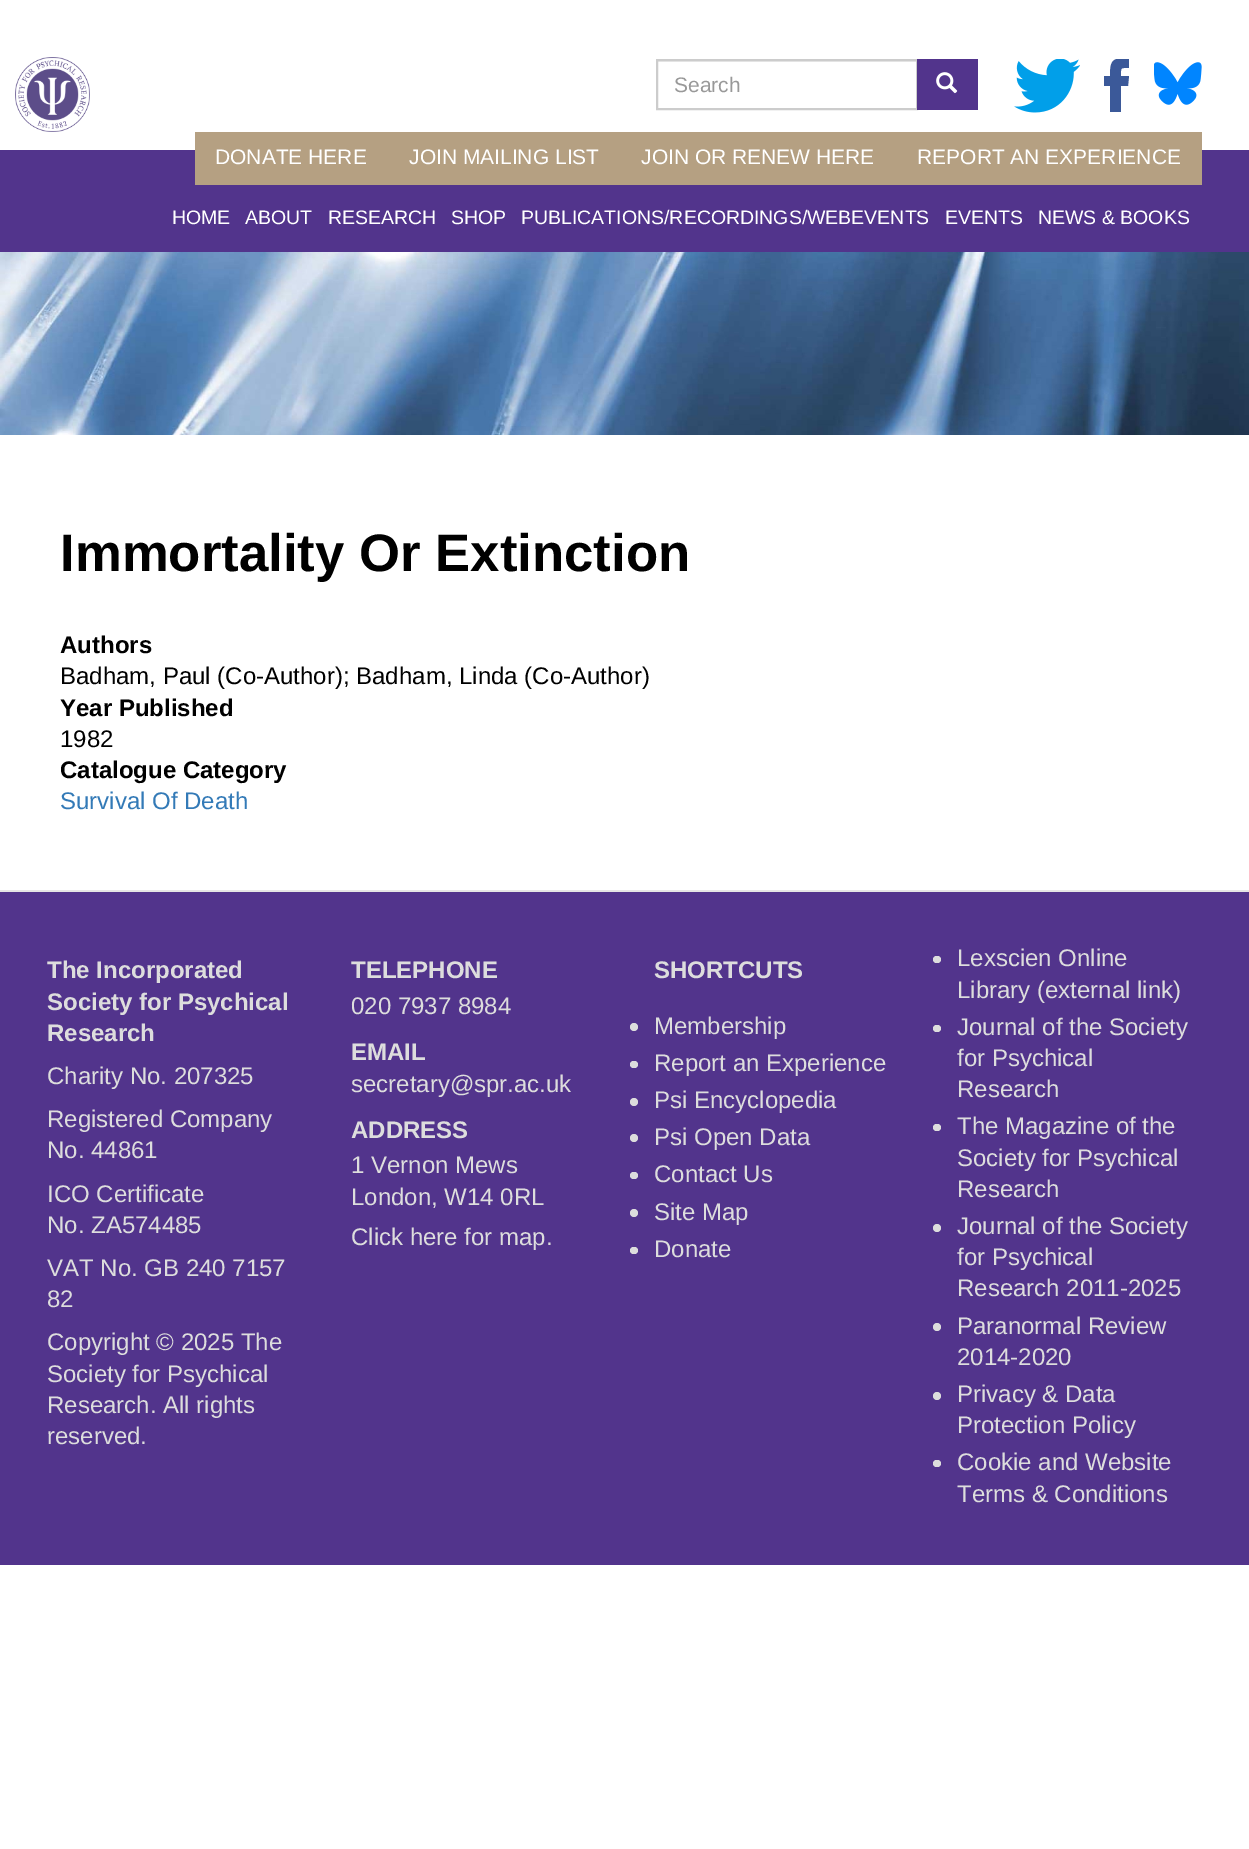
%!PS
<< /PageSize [1249 1849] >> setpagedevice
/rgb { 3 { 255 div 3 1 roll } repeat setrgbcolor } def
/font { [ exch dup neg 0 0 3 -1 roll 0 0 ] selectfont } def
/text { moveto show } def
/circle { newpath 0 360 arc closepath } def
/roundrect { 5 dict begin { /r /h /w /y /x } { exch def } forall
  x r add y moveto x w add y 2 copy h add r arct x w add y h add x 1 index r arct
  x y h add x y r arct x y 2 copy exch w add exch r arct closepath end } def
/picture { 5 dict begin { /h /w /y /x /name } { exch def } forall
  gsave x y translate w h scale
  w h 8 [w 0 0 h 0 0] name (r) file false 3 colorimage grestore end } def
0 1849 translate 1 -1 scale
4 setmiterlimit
255 255 255 rgb
0 0 1249 1849 rectfill
236 236 236 rgb
657 61 260 1 rectfill
204 204 204 rgb
2 setlinewidth
657 60 260 49 rectstroke
82 52 140 rgb
917 59 61 51 rectfill
(img_01.rgb) 936 72 22 22 picture
(img_02.rgb) 1014 59 66 54 picture
gsave
1104 59 26 54 rectclip
59 89 153 rgb
1129 76 moveto -8 0 rlineto 0 -9 -1 -8 8 -8 rcurveto 0 -10 rlineto -16 0 -19 1 -19 18 rcurveto -6 0 rlineto 0 10 rlineto 6 0 rlineto 0 26 rlineto 11 0 rlineto 0 -26 rlineto 7 0 rlineto closepath fill
grestore
(img_03.rgb) 1154 62 48 43 picture
0 150 1249 102 rectfill
181 160 130 rgb
195 132 1007 53 rectfill
(img_04.rgb) 15 57 75 75 picture
(img_05.rgb) 0 252 1249 183 picture
82 52 140 rgb
0 892 1249 673 rectfill
229 229 229 rgb
0 890 1249 2 rectfill
221 221 221 rgb
634 1027 4 circle fill
630 1061 8 7 3.5 roundrect fill
634 1102 4 circle fill
634 1138 4 circle fill
630 1172 8 7 3.5 roundrect fill
634 1213 4 circle fill
630 1247 8 7 3.5 roundrect fill
933 956 8 7 3.5 roundrect fill
933 1025 8 7 3.5 roundrect fill
933 1124 8 7 3.5 roundrect fill
937 1228 4 circle fill
937 1327 4 circle fill
937 1396 4 circle fill
933 1460 8 7 3.5 roundrect fill
/LiberationSans-Regular 21 font
153 153 153 rgb
(Search) 674 92 text
255 255 255 rgb
(DONATE HERE) 215 164 text
(JOIN MAILING LIST) 409 164 text
(JOIN OR RENEW HERE) 641 164 text
(REPORT AN EXPERIENCE) 917 164 text
/LiberationSans-Regular 19.5 font
(HOME) 172 224 text
(ABOUT) 245 224 text
(RESEARCH) 328 224 text
(SHOP) 451 224 text
(PUBLICATIONS/RECORDINGS/WEBEVENTS) 521 224 text
(EVENTS) 945 224 text
(NEWS & BOOKS) 1038 224 text
/LiberationSans-Bold 52.75 font
0 0 0 rgb
(Immortality Or Extinction) 60 571 text
/LiberationSans-Bold 24 font
(Authors) 60 653 text
/LiberationSans-Regular 24 font
(Badham, Paul \(Co-Author\); Badham, Linda \(Co-Author\)) 60 684 text
/LiberationSans-Bold 24 font
(Year Published) 60 716 text
/LiberationSans-Regular 24 font
(1982) 60 747 text
/LiberationSans-Bold 24 font
(Catalogue Category) 60 778 text
/LiberationSans-Regular 24 font
51 122 183 rgb
(Survival Of Death) 60 809 text
/LiberationSans-Bold 24 font
221 221 221 rgb
(The Incorporated) 47 978 text
(Society for Psychical) 47 1010 text
(Research) 47 1041 text
/LiberationSans-Regular 24 font
(Charity No. 207325) 47 1084 text
(Registered Company) 47 1127 text
(No. 44861) 47 1158 text
(ICO Certificate) 47 1202 text
(No. ZA574485) 47 1233 text
(VAT No. GB 240 7157) 47 1276 text
(82) 47 1307 text
(Copyright © 2025 The) 47 1350 text
(Society for Psychical) 47 1382 text
(Research. All rights) 47 1413 text
(reserved.) 47 1444 text
/LiberationSans-Bold 24 font
(TELEPHONE) 351 978 text
/LiberationSans-Regular 24 font
(020 7937 8984) 351 1014 text
/LiberationSans-Bold 24 font
(EMAIL) 351 1060 text
/LiberationSans-Regular 24 font
(secretary@spr.ac.uk) 351 1092 text
/LiberationSans-Bold 24 font
(ADDRESS) 351 1138 text
/LiberationSans-Regular 24 font
(1 Vernon Mews) 351 1173 text
(London, W14 0RL) 351 1205 text
(Click here for map.) 351 1245 text
/LiberationSans-Bold 24 font
(SHORTCUTS) 654 978 text
/LiberationSans-Regular 24 font
(Membership) 654 1034 text
(Report an Experience) 654 1071 text
(Psi Encyclopedia) 654 1108 text
(Psi Open Data) 654 1145 text
(Contact Us) 654 1182 text
(Site Map) 654 1220 text
(Donate) 654 1257 text
(Lexscien Online) 957 966 text
(Library \(external link\)) 957 998 text
(Journal of the Society) 957 1035 text
(for Psychical) 957 1066 text
(Research) 957 1097 text
(The Magazine of the) 957 1134 text
(Society for Psychical) 957 1166 text
(Research) 957 1197 text
(Journal of the Society) 957 1234 text
(for Psychical) 957 1265 text
(Research 2011-2025) 957 1296 text
(Paranormal Review) 957 1334 text
(2014-2020) 957 1365 text
(Privacy & Data) 957 1402 text
(Protection Policy) 957 1433 text
(Cookie and Website) 957 1470 text
(Terms & Conditions) 957 1502 text
showpage
